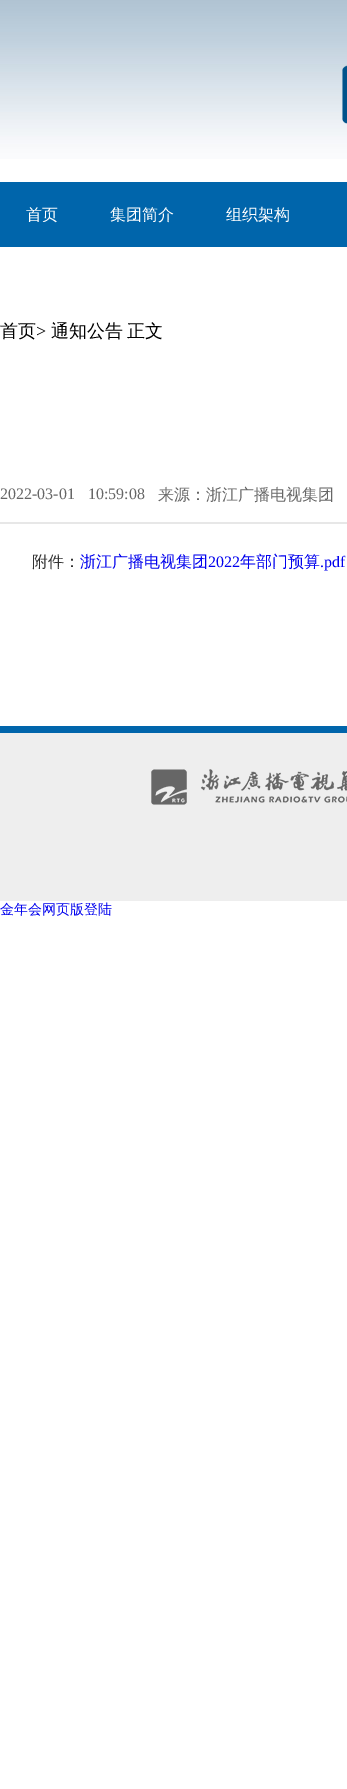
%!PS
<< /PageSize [347 1789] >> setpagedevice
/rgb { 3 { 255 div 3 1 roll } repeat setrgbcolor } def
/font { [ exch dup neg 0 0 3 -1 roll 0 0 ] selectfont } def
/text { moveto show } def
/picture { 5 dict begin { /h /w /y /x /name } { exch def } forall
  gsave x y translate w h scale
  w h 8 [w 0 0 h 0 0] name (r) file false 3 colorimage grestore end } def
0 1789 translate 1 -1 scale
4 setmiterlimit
255 255 255 rgb
0 0 347 1789 rectfill
(img_01.rgb) 0 0 347 159 picture
(img_02.rgb) 342 65 5 59 picture
0 101 171 rgb
0 182 347 65 rectfill
231 231 231 rgb
0 522 347 2 rectfill
238 238 238 rgb
0 733 347 168 rectfill
0 101 171 rgb
0 726 347 7 rectfill
(img_03.rgb) 151 769 196 36 picture
/WenQuanYiZenHei-Medium 16 font
255 255 255 rgb
(首页) 26 220 text
(集团简介) 110 220 text
(组织架构) 226 220 text
/WenQuanYiZenHei-Medium 18 font
0 0 0 rgb
(首页) 0 337 text
/LiberationSerif-Regular 18 font
(>) 36 337 text
/WenQuanYiZenHei-Medium 18 font
51 337 moveto -1 0 32 (通知公告 正文) widthshow
/LiberationSerif-Regular 16 font
102 102 102 rgb
(2022-03-01) 0 499 text
(10:59:08) 88 499 text
/WenQuanYiZenHei-Medium 16 font
(来源：浙江广播电视集团) 158 500 text
51 51 51 rgb
(附件：) 32 567 text
0 0 238 rgb
(浙江广播电视集团) 80 567 text
/LiberationSerif-Regular 16 font
(2022) 208 567 text
/WenQuanYiZenHei-Medium 16 font
(年部门预算) 240 567 text
/LiberationSerif-Regular 16 font
(.pdf) 320 567 text
/WenQuanYiZenHei-Medium 14 font
(金年会网页版登陆) 0 914 text
showpage
